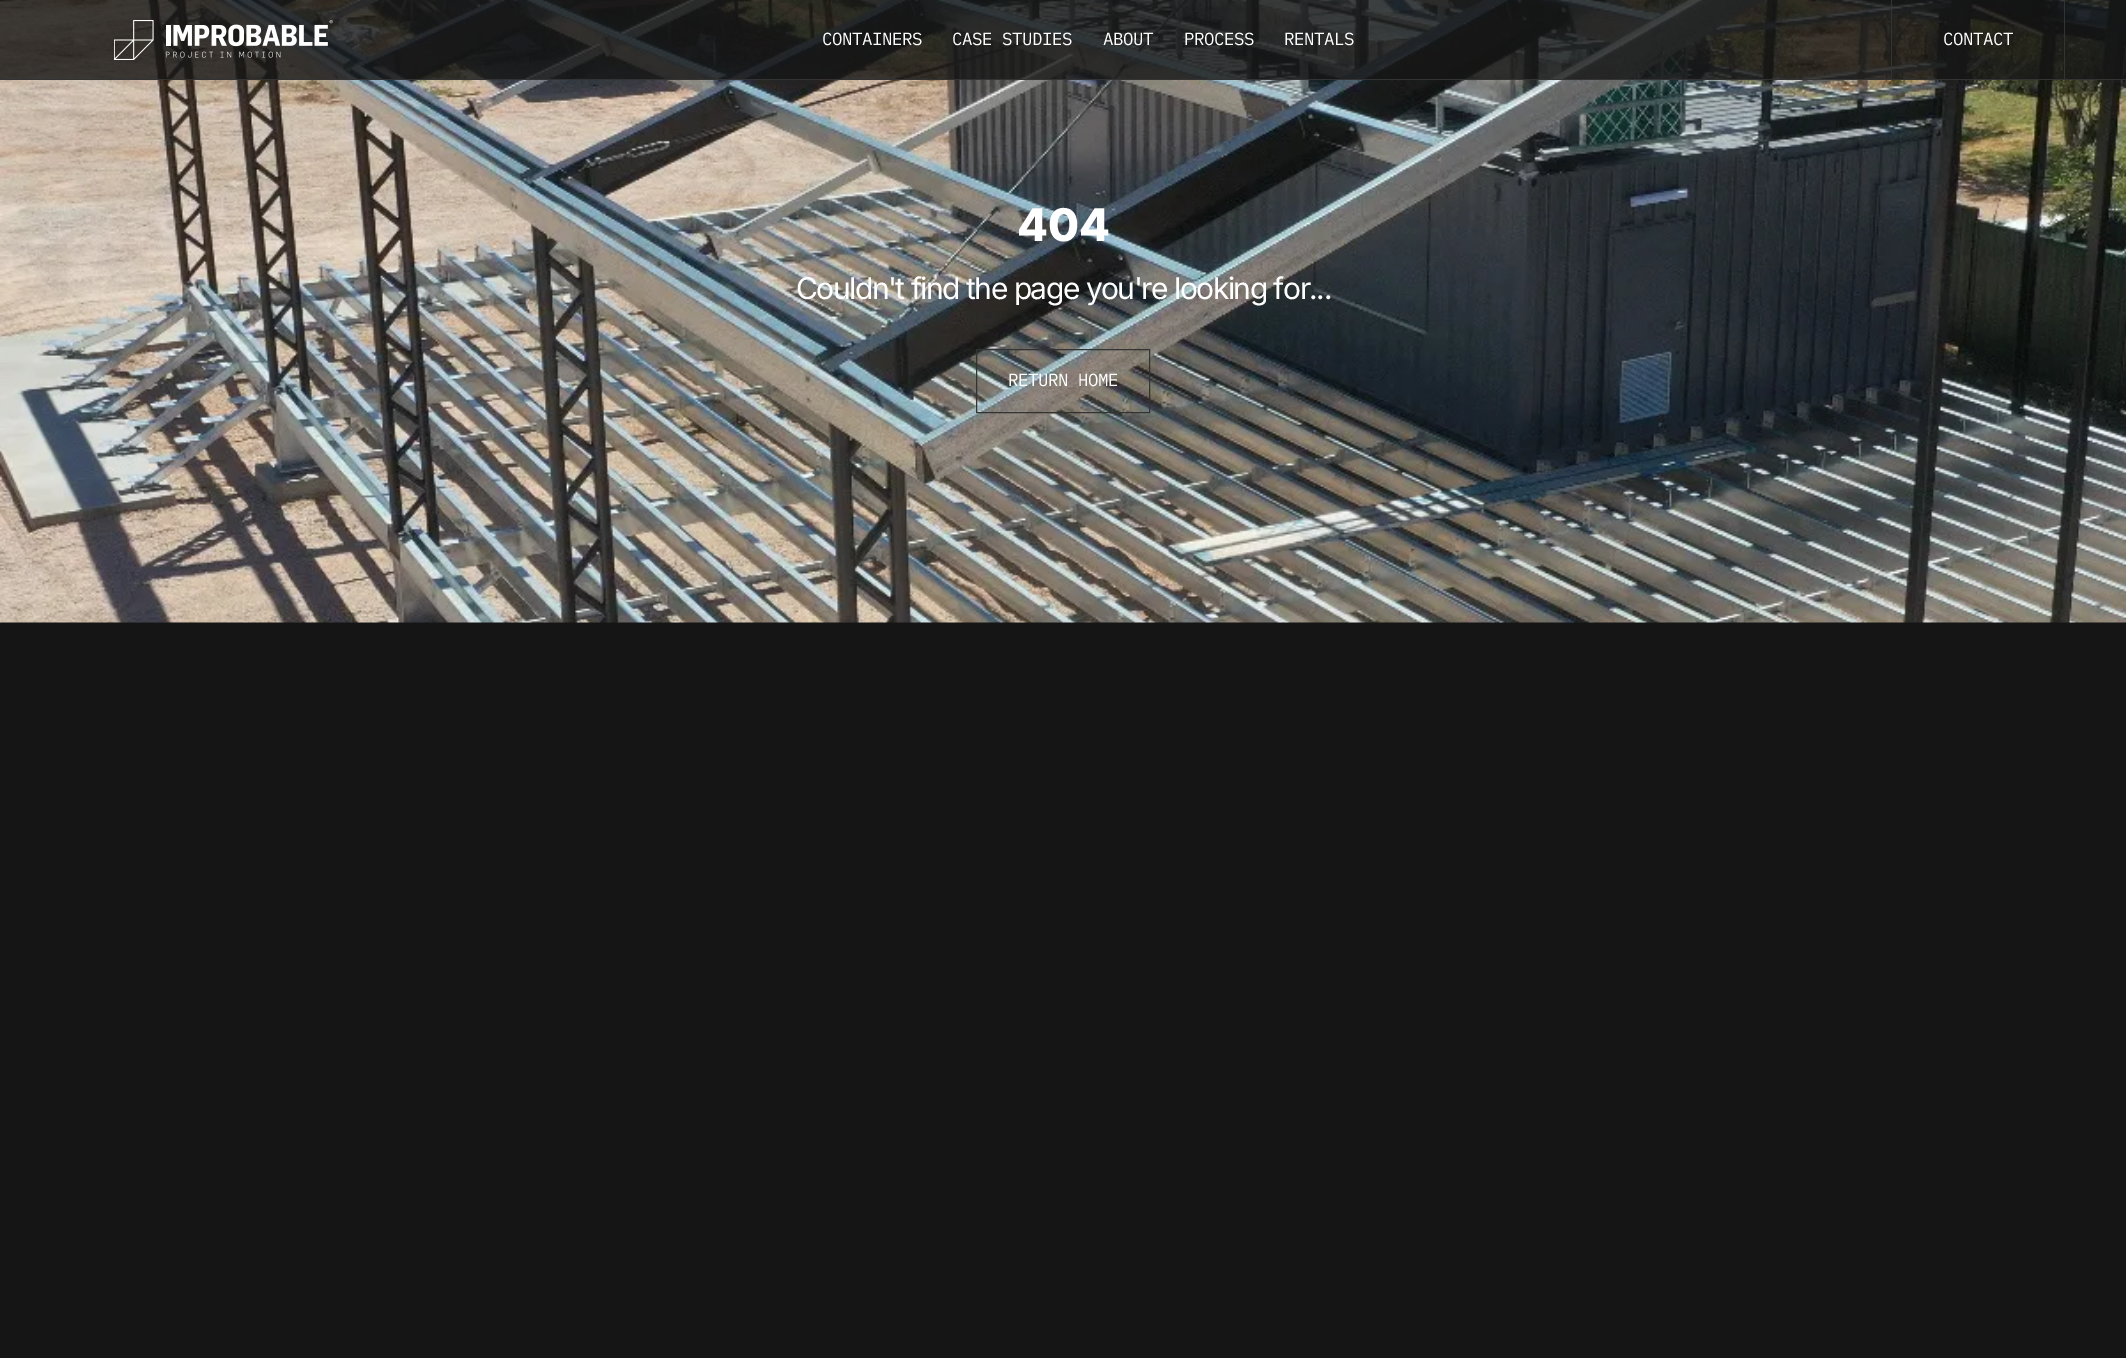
%!PS
<< /PageSize [2126 1358] /PageUsesTransparency true >> setpagedevice
/rgb { 3 { 255 div 3 1 roll } repeat setrgbcolor } def
/font { [ exch dup neg 0 0 3 -1 roll 0 0 ] selectfont } def
/text { moveto show } def
/alpha { dup .setfillconstantalpha .setstrokeconstantalpha } def
/picture { 5 dict begin { /h /w /y /x /name } { exch def } forall
  gsave x y translate w h scale
  w h 8 [w 0 0 h 0 0] name (r) file false 3 colorimage grestore end } def
0 .pushpdf14devicefilter
0 1358 translate 1 -1 scale
4 setmiterlimit
21 21 21 rgb
0 0 2126 1358 rectfill
(img_02.rgb) 0 0 2126 623 picture
0.8 alpha
0 0 2126 79 rectfill
1 alpha
51 51 51 rgb
0 79 2126 1 rectfill
(img_01.rgb) 114 20 219 40 picture
2064 0 1 79 rectfill
1891 0 1 79 rectfill
976.5 349.5 173 63 rectstroke
/IBMPlexMono-Regular 17.5 font
255 255 255 rgb
822 45 moveto -0.5 0 (CONTAINERS) ashow
952 45 moveto -0.5 0 (CASE STUDIES) ashow
1103 45 moveto -0.5 0 (ABOUT) ashow
1184 45 moveto -0.5 0 (PROCESS) ashow
1284 45 moveto -0.5 0 (RENTALS) ashow
1943 45 moveto -0.5 0 (CONTACT) ashow
/Inter-ExtraBold 45 font
(404) 1017 241 text
/Inter-Regular 30 font
796 299 moveto -1.5 0 (Couldn't find the page you're looking for...) ashow
/IBMPlexMono-Regular 17.5 font
1008 386 moveto -0.5 0 (RETURN HOME) ashow
.poppdf14devicefilter showpage
